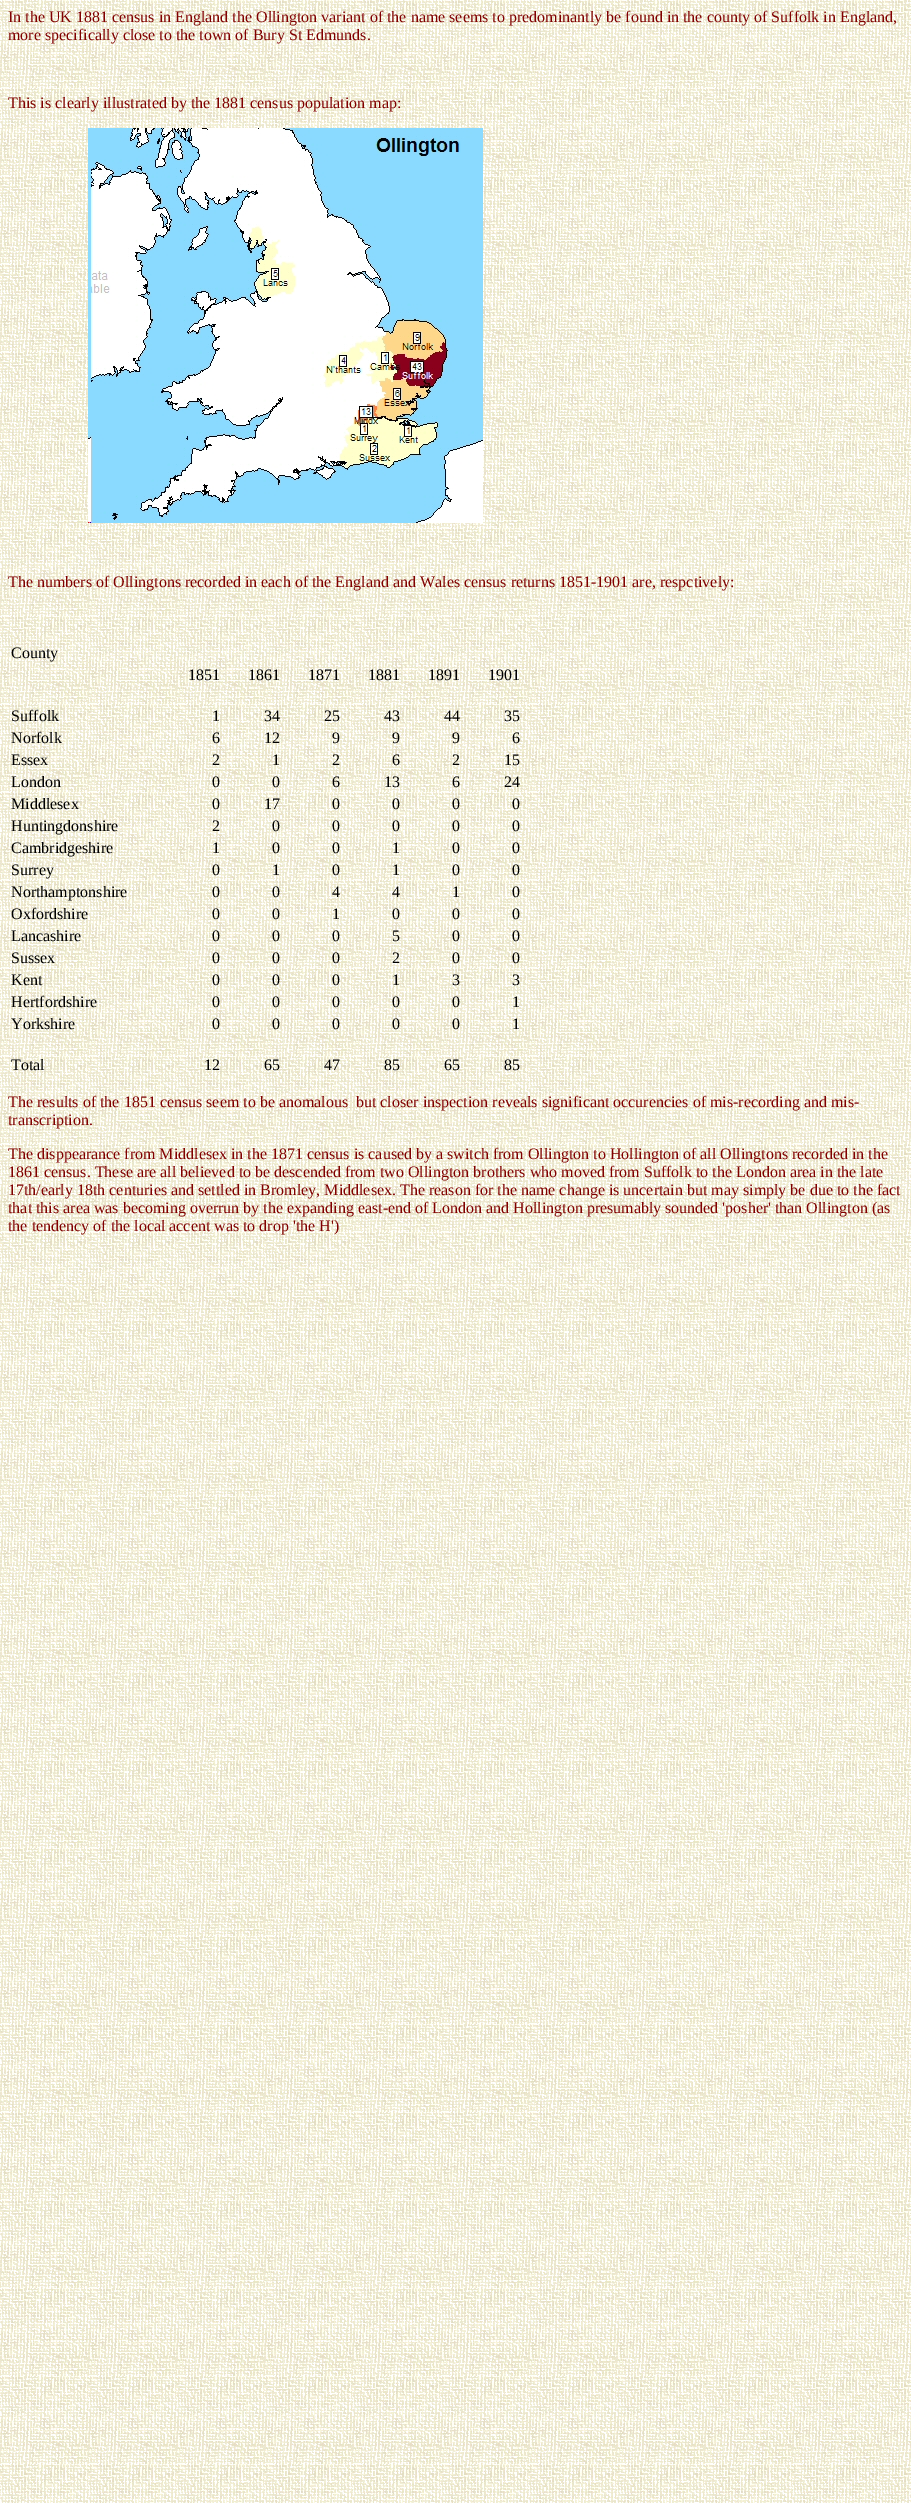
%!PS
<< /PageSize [911 2503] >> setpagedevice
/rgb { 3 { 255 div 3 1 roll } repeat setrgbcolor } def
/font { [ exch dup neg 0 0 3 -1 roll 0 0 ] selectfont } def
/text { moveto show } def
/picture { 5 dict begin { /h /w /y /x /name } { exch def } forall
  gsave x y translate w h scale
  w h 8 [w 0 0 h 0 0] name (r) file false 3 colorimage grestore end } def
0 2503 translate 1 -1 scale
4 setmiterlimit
255 255 255 rgb
0 0 911 2503 rectfill
(img_01.rgb) 0 0 911 2503 picture
(img_02.rgb) 88 128 395 395 picture
/LiberationSerif-Regular 16 font
128 0 0 rgb
(In the UK 1881 census in England the Ollington variant of the name seems to predominantly be found in the county of Suffolk in England,) 8 22 text
(more specifically close to the town of Bury St Edmunds.) 8 40 text
(This is clearly illustrated by the 1881 census population map:) 8 108 text
(The numbers of Ollingtons recorded in each of the England and Wales census returns 1851-1901 are, respctively:) 8 587 text
0 0 0 rgb
(County) 11 658 text
(1851) 188 680 text
(1861) 248 680 text
(1871) 308 680 text
(1881) 368 680 text
(1891) 428 680 text
(1901) 488 680 text
(Suffolk) 11 721 text
(1) 212 721 text
(34) 264 721 text
(25) 324 721 text
(43) 384 721 text
(44) 444 721 text
(35) 504 721 text
(Norfolk) 11 743 text
(6) 212 743 text
(12) 264 743 text
(9) 332 743 text
(9) 392 743 text
(9) 452 743 text
(6) 512 743 text
(Essex) 11 765 text
(2) 212 765 text
(1) 272 765 text
(2) 332 765 text
(6) 392 765 text
(2) 452 765 text
(15) 504 765 text
(London) 11 787 text
(0) 212 787 text
(0) 272 787 text
(6) 332 787 text
(13) 384 787 text
(6) 452 787 text
(24) 504 787 text
(Middlesex) 11 809 text
(0) 212 809 text
(17) 264 809 text
(0) 332 809 text
(0) 392 809 text
(0) 452 809 text
(0) 512 809 text
(Huntingdonshire) 11 831 text
(2) 212 831 text
(0) 272 831 text
(0) 332 831 text
(0) 392 831 text
(0) 452 831 text
(0) 512 831 text
(Cambridgeshire) 11 853 text
(1) 212 853 text
(0) 272 853 text
(0) 332 853 text
(1) 392 853 text
(0) 452 853 text
(0) 512 853 text
(Surrey) 11 875 text
(0) 212 875 text
(1) 272 875 text
(0) 332 875 text
(1) 392 875 text
(0) 452 875 text
(0) 512 875 text
(Northamptonshire) 11 897 text
(0) 212 897 text
(0) 272 897 text
(4) 332 897 text
(4) 392 897 text
(1) 452 897 text
(0) 512 897 text
(Oxfordshire) 11 919 text
(0) 212 919 text
(0) 272 919 text
(1) 332 919 text
(0) 392 919 text
(0) 452 919 text
(0) 512 919 text
(Lancashire) 11 941 text
(0) 212 941 text
(0) 272 941 text
(0) 332 941 text
(5) 392 941 text
(0) 452 941 text
(0) 512 941 text
(Sussex) 11 963 text
(0) 212 963 text
(0) 272 963 text
(0) 332 963 text
(2) 392 963 text
(0) 452 963 text
(0) 512 963 text
(Kent) 11 985 text
(0) 212 985 text
(0) 272 985 text
(0) 332 985 text
(1) 392 985 text
(3) 452 985 text
(3) 512 985 text
(Hertfordshire) 11 1007 text
(0) 212 1007 text
(0) 272 1007 text
(0) 332 1007 text
(0) 392 1007 text
(0) 452 1007 text
(1) 512 1007 text
(Yorkshire) 11 1029 text
(0) 212 1029 text
(0) 272 1029 text
(0) 332 1029 text
(0) 392 1029 text
(0) 452 1029 text
(1) 512 1029 text
(Total) 11 1070 text
(12) 204 1070 text
(65) 264 1070 text
(47) 324 1070 text
(85) 384 1070 text
(65) 444 1070 text
(85) 504 1070 text
128 0 0 rgb
(The results of the 1851 census seem to be anomalous  but closer inspection reveals significant occurencies of mis-recording and mis-) 8 1107 text
(transcription.) 8 1125 text
(The disppearance from Middlesex in the 1871 census is caused by a switch from Ollington to Hollington of all Ollingtons recorded in the) 8 1159 text
(1861 census. These are all believed to be descended from two Ollington brothers who moved from Suffolk to the London area in the late) 8 1177 text
(17th/early 18th centuries and settled in Bromley, Middlesex. The reason for the name change is uncertain but may simply be due to the fact) 8 1195 text
(that this area was becoming overrun by the expanding east-end of London and Hollington presumably sounded 'posher' than Ollington \(as) 8 1213 text
(the tendency of the local accent was to drop 'the H'\)) 8 1231 text
showpage
